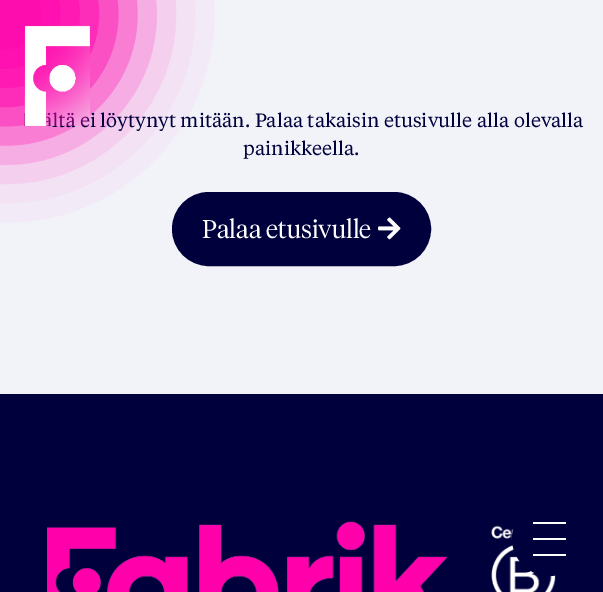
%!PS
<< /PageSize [603 592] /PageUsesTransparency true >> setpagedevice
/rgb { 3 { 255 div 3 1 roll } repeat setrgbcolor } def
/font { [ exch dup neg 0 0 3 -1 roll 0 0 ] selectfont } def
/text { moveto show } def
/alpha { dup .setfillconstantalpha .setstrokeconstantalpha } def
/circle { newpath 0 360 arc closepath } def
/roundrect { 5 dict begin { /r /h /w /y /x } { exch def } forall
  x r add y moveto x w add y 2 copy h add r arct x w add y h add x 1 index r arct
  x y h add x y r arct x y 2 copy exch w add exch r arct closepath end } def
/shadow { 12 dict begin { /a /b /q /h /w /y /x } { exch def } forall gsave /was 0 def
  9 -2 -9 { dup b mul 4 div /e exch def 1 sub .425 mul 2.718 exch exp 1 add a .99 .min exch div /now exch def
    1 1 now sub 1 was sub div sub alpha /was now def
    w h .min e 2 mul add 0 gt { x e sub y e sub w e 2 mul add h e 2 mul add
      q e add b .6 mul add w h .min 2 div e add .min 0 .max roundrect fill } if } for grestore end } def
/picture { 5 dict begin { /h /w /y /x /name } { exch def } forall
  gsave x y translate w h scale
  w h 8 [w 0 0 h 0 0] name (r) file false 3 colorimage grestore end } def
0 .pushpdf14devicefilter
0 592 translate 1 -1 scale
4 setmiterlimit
242 242 249 rgb
0 0 603 592 rectfill
0 0 60 rgb
174.5 194.5 254 69 34.5 roundrect gsave fill grestore
5 setlinewidth
stroke
255 7 172 rgb
-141 -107 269 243 121.5 38.5 1 shadow
0 0 60 rgb
0 394 603 198 rectfill
(img_03.rgb) 47 521 509 71 picture
549.5 538.5 37.5 circle fill
255 255 255 rgb
533 522 33 2 rectfill
533 538 33 2 rectfill
533 554 33 2 rectfill
(img_02.rgb) 378 217 23 23 picture
/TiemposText-Regular 19.2 font
0 0 60 rgb
(ltä ei löytynyt mitään. Palaa takaisin etusivulle alla olevalla) 52 127 text
(img_01.rgb) 24 25 66 101 picture
(painikkeella.) 243 155 text
/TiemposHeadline-Light 25.5 font
255 255 255 rgb
(Palaa etusivulle) 202 238 text
.poppdf14devicefilter showpage
